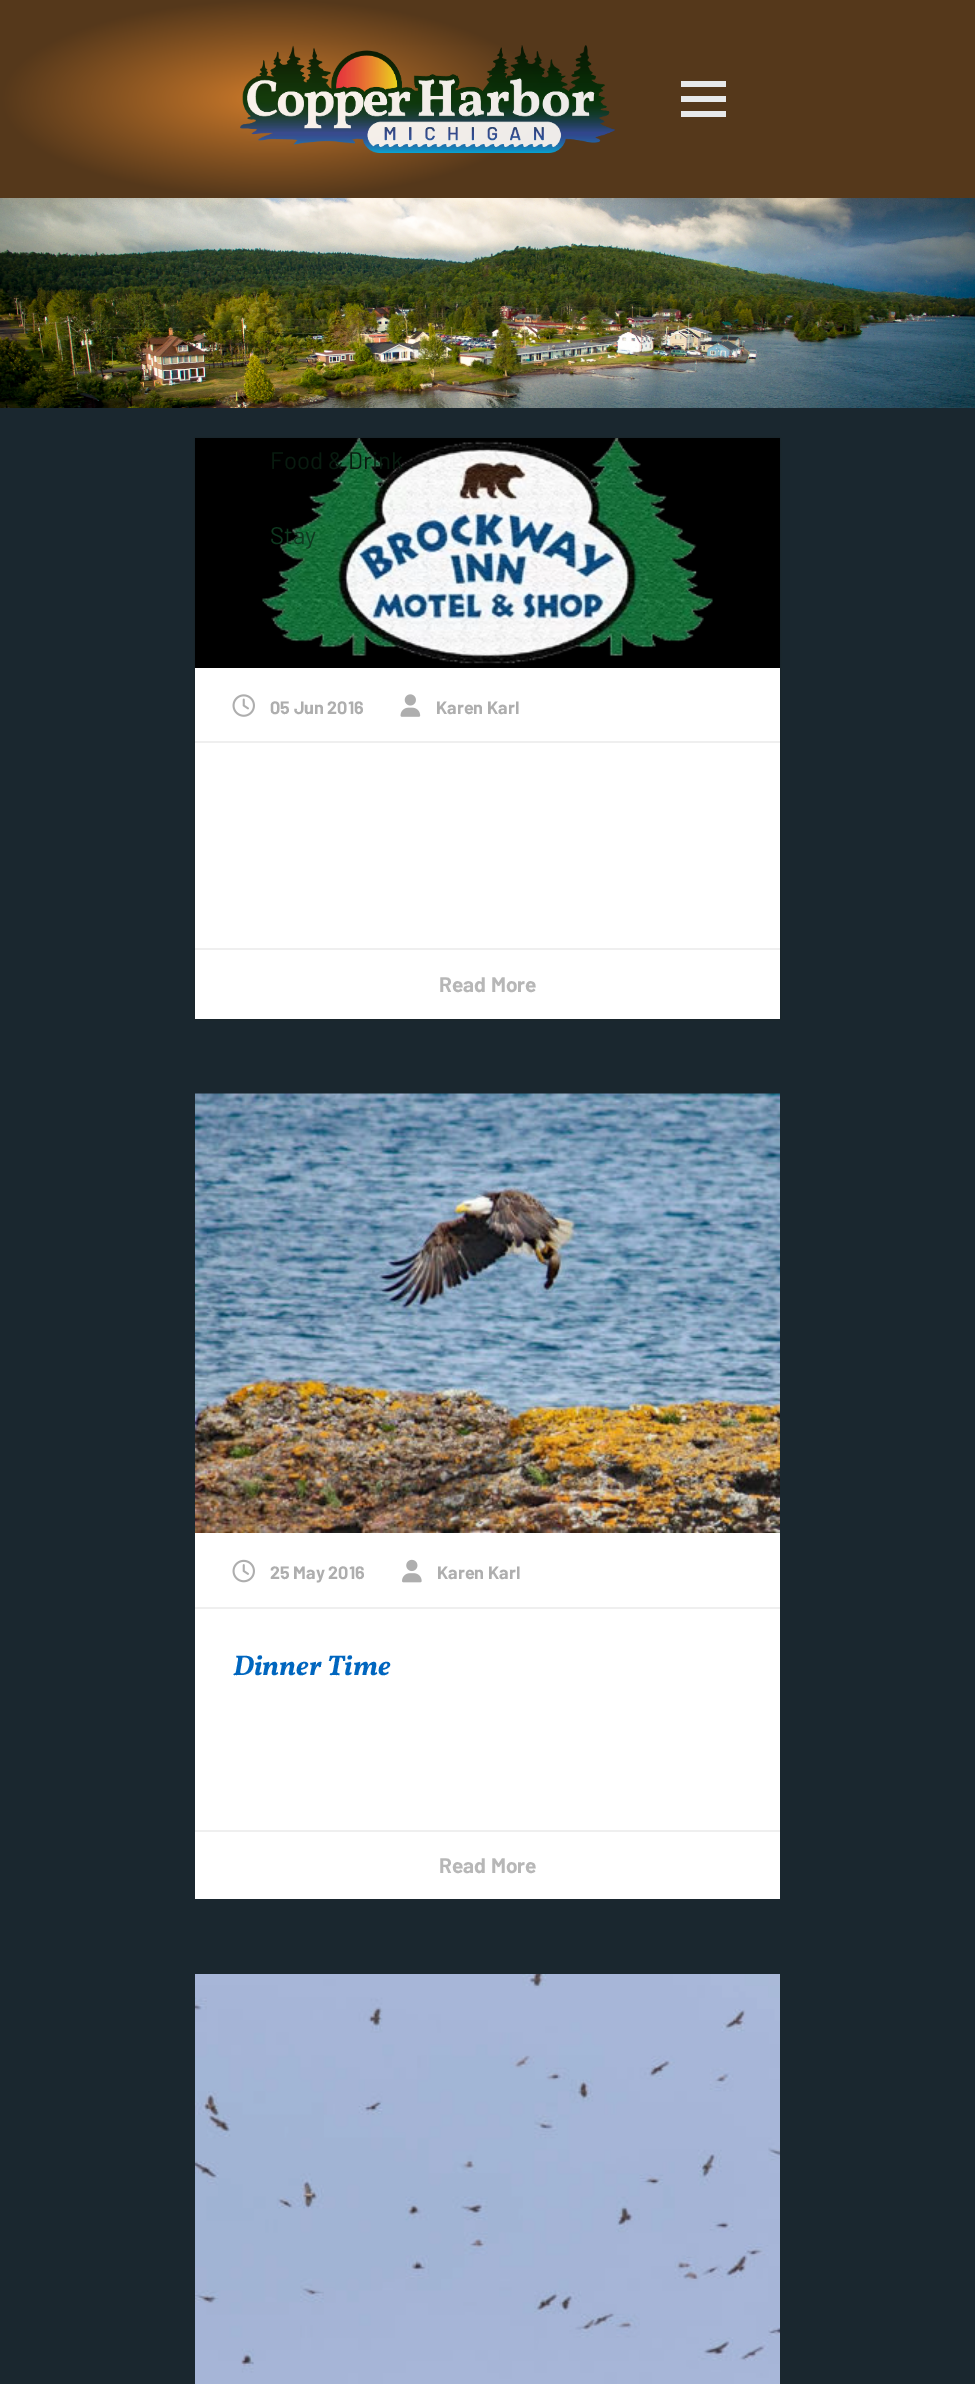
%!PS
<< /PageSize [975 2384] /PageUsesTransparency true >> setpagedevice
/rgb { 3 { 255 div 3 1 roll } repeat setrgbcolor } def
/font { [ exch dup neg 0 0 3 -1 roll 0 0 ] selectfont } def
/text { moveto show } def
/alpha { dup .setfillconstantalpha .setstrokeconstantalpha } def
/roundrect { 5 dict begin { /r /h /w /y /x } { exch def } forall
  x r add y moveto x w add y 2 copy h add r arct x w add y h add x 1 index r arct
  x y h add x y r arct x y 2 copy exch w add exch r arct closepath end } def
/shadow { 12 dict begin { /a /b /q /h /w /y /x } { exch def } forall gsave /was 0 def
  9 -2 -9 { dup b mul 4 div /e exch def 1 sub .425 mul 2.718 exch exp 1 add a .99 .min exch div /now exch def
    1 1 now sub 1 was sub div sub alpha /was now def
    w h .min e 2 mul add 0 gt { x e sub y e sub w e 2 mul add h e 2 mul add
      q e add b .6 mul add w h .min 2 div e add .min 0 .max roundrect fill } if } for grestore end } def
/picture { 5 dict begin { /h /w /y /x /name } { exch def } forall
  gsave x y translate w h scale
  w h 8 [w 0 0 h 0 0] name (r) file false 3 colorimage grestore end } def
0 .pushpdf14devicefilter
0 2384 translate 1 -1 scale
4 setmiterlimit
26 39 47 rgb
0 0 975 2384 rectfill
(img_01.rgb) 0 198 975 210 picture
gsave 0 0 moveto 975 0 rlineto 0 198 rlineto -975 0 rlineto closepath clip newpath 273 99 translate 273 99 scale
<< /ShadingType 3 /ColorSpace /DeviceRGB /Coords [0 0 0 0 0 1] /Extend [true true] /Function << /FunctionType 2 /Domain [0 1] /C0 [0.804 0.478 0.165] /C1 [0.333 0.22 0.106] /N 1 >> >> shfill grestore
(img_02.rgb) 240 45 375 108 picture
232 233 234 rgb
681 111 45 6 rectfill
681 96 45 6 rectfill
681 81 45 6 rectfill
255 255 255 rgb
195 668 585 351 rectfill
gsave
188 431 moveto 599 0 rlineto 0 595 rlineto -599 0 rlineto closepath 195 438 moveto 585 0 rlineto 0 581 rlineto -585 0 rlineto closepath eoclip newpath
0 0 0 rgb
195 438 585 581 0 2 0.15 shadow
grestore
0 0 0 rgb
195 438 585 230 rectfill
(img_03.rgb) 262 438 451 226 picture
239 239 239 rgb
195 741 585 2 rectfill
(img_04.rgb) 232 694 23 23 picture
(img_05.rgb) 400 694 21 23 picture
195 948 585 2 rectfill
255 255 255 rgb
195 1533 585 366 rectfill
(img_06.rgb) 195 1093 585 440 picture
239 239 239 rgb
195 1607 585 2 rectfill
(img_07.rgb) 232 1559 23 24 picture
(img_08.rgb) 402 1559 20 24 picture
195 1830 585 2 rectfill
(img_09.rgb) 195 1974 585 410 picture
/Barlow-Regular 24 font
8 27 15 rgb
(Food & Drink) 270 469 text
14 56 31 rgb
(Stay) 270 544 text
/Barlow-Bold 18 font
174 174 174 rgb
(05 Jun 2016) 270 714 text
(Karen Karl) 436 714 text
/Barlow-Bold 21 font
183 183 183 rgb
(Read More) 439 992 text
/Barlow-Bold 18 font
174 174 174 rgb
(25 May 2016) 270 1579 text
(Karen Karl) 437 1579 text
/Vollkorn-BoldItalic 28.5 font
0 102 191 rgb
(Dinner Time) 233 1675 text
/Barlow-Bold 21 font
183 183 183 rgb
(Read More) 439 1873 text
.poppdf14devicefilter showpage
